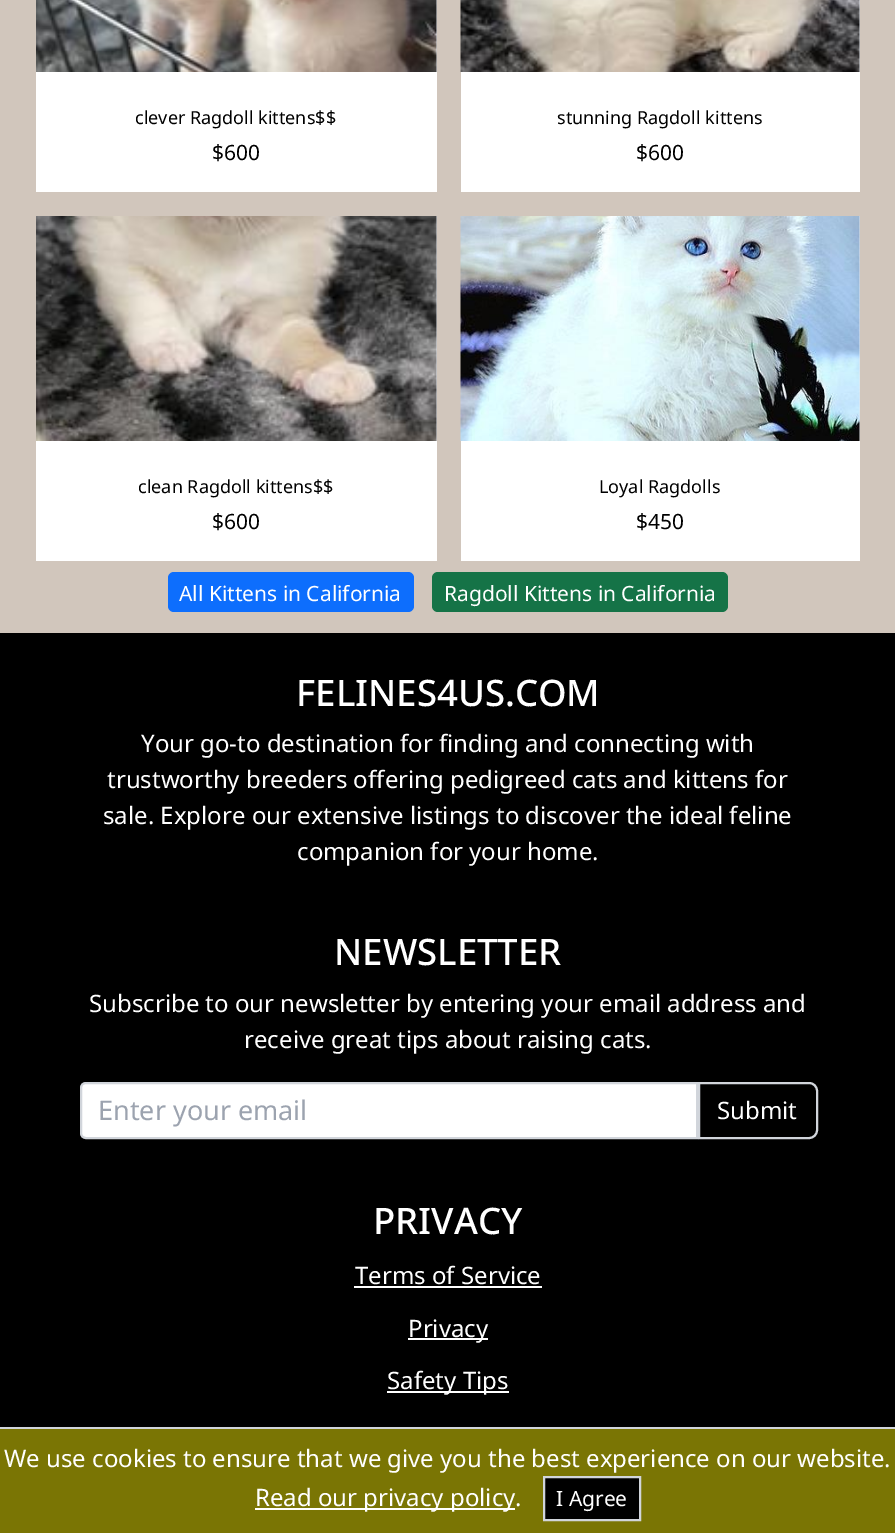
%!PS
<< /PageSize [895 1533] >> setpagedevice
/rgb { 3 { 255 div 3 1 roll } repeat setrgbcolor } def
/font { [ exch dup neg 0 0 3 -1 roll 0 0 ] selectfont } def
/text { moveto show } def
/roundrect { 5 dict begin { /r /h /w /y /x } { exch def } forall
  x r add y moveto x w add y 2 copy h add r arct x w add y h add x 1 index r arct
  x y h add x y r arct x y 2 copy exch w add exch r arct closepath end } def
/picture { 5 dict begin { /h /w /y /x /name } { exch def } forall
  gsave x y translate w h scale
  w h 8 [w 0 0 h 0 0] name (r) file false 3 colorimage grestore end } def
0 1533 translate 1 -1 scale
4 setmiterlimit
209 198 188 rgb
0 0 895 1533 rectfill
229 231 235 rgb
436 0 1 72 rectfill
(img_01.rgb) 36 0 401 72 picture
255 255 255 rgb
36 72 401 120 rectfill
229 231 235 rgb
859 0 1 72 rectfill
(img_02.rgb) 460 0 400 72 picture
255 255 255 rgb
461 72 399 120 rectfill
229 231 235 rgb
436 216 1 225 rectfill
(img_03.rgb) 36 216 401 225 picture
255 255 255 rgb
36 441 401 120 rectfill
229 231 235 rgb
859 216 1 225 rectfill
(img_04.rgb) 460 216 400 225 picture
255 255 255 rgb
461 441 399 120 rectfill
13 110 253 rgb
168 572 246 40 6 roundrect fill
21 115 71 rgb
432 572 296 40 6 roundrect fill
0 0 0 rgb
0 633 895 794 rectfill
255 255 255 rgb
86 1083 moveto 611 0 rlineto 0 55 rlineto -611 0 rlineto -3 0 -5 -2 -5 -5 rcurveto 0 -45 rlineto 0 -3 2 -5 5 -5 rcurveto closepath gsave fill grestore
209 213 219 rgb
2 setlinewidth
stroke
699 1083 moveto 110 0 rlineto 4.5 0 8 3.5 8 8 rcurveto 0 39 rlineto 0 4.5 -3.5 8 -8 8 rcurveto -110 0 rlineto closepath stroke
255 255 255 rgb
354 1286 188 2 rectfill
408 1338 80 2 rectfill
387 1391 122 2 rectfill
122 117 4 rgb
0 1429 895 104 rectfill
209 213 219 rgb
0 1427 895 2 rectfill
255 255 255 rgb
255 1508 260 2 rectfill
0 0 0 rgb
544 1477 moveto 96 0 rlineto 0 43 rlineto -96 0 rlineto closepath gsave fill grestore
209 213 219 rgb
stroke
/NotoSans-Regular 18 font
0 0 0 rgb
(clever Ragdoll kittens$$) 135 124 text
/NotoSans-Regular 21 font
($600) 212 160 text
/NotoSans-Regular 18 font
(stunning Ragdoll kittens) 557 124 text
/NotoSans-Regular 21 font
($600) 636 160 text
/NotoSans-Regular 18 font
(clean Ragdoll kittens$$) 138 493 text
/NotoSans-Regular 21 font
($600) 212 529 text
/NotoSans-Regular 18 font
(Loyal Ragdolls) 599 493 text
/NotoSans-Regular 21 font
($450) 636 529 text
255 255 255 rgb
(All Kittens in California) 179 601 text
(Ragdoll Kittens in California) 444 601 text
/NotoSans-Medium 36.5 font
(FELINES4US.COM) 296 706 text
/NotoSans-Regular 24 font
(Your go-to destination for finding and connecting with) 141 752 text
(trustworthy breeders offering pedigreed cats and kittens for) 107 788 text
(sale. Explore our extensive listings to discover the ideal feline) 103 824 text
(companion for your home.) 297 860 text
/NotoSans-Medium 36.5 font
(NEWSLETTER) 334 965 text
/NotoSans-Regular 24 font
(Subscribe to our newsletter by entering your email address and) 89 1012 text
(receive great tips about raising cats.) 244 1048 text
/NotoSans-Regular 27 font
156 163 175 rgb
(Enter your email) 98 1120 text
/NotoSans-Regular 24 font
255 255 255 rgb
(Submit) 717 1119 text
/NotoSans-Medium 36.5 font
(PRIVACY) 373 1234 text
/NotoSans-Regular 24 font
(Terms of Service) 355 1284 text
(Privacy) 408 1337 text
(Safety Tips) 387 1389 text
(We use cookies to ensure that we give you the best experience on our website.) 4 1467 text
(Read our privacy policy.) 255 1506 text
/NotoSans-Regular 21 font
(I Agree) 556 1506 text
showpage
